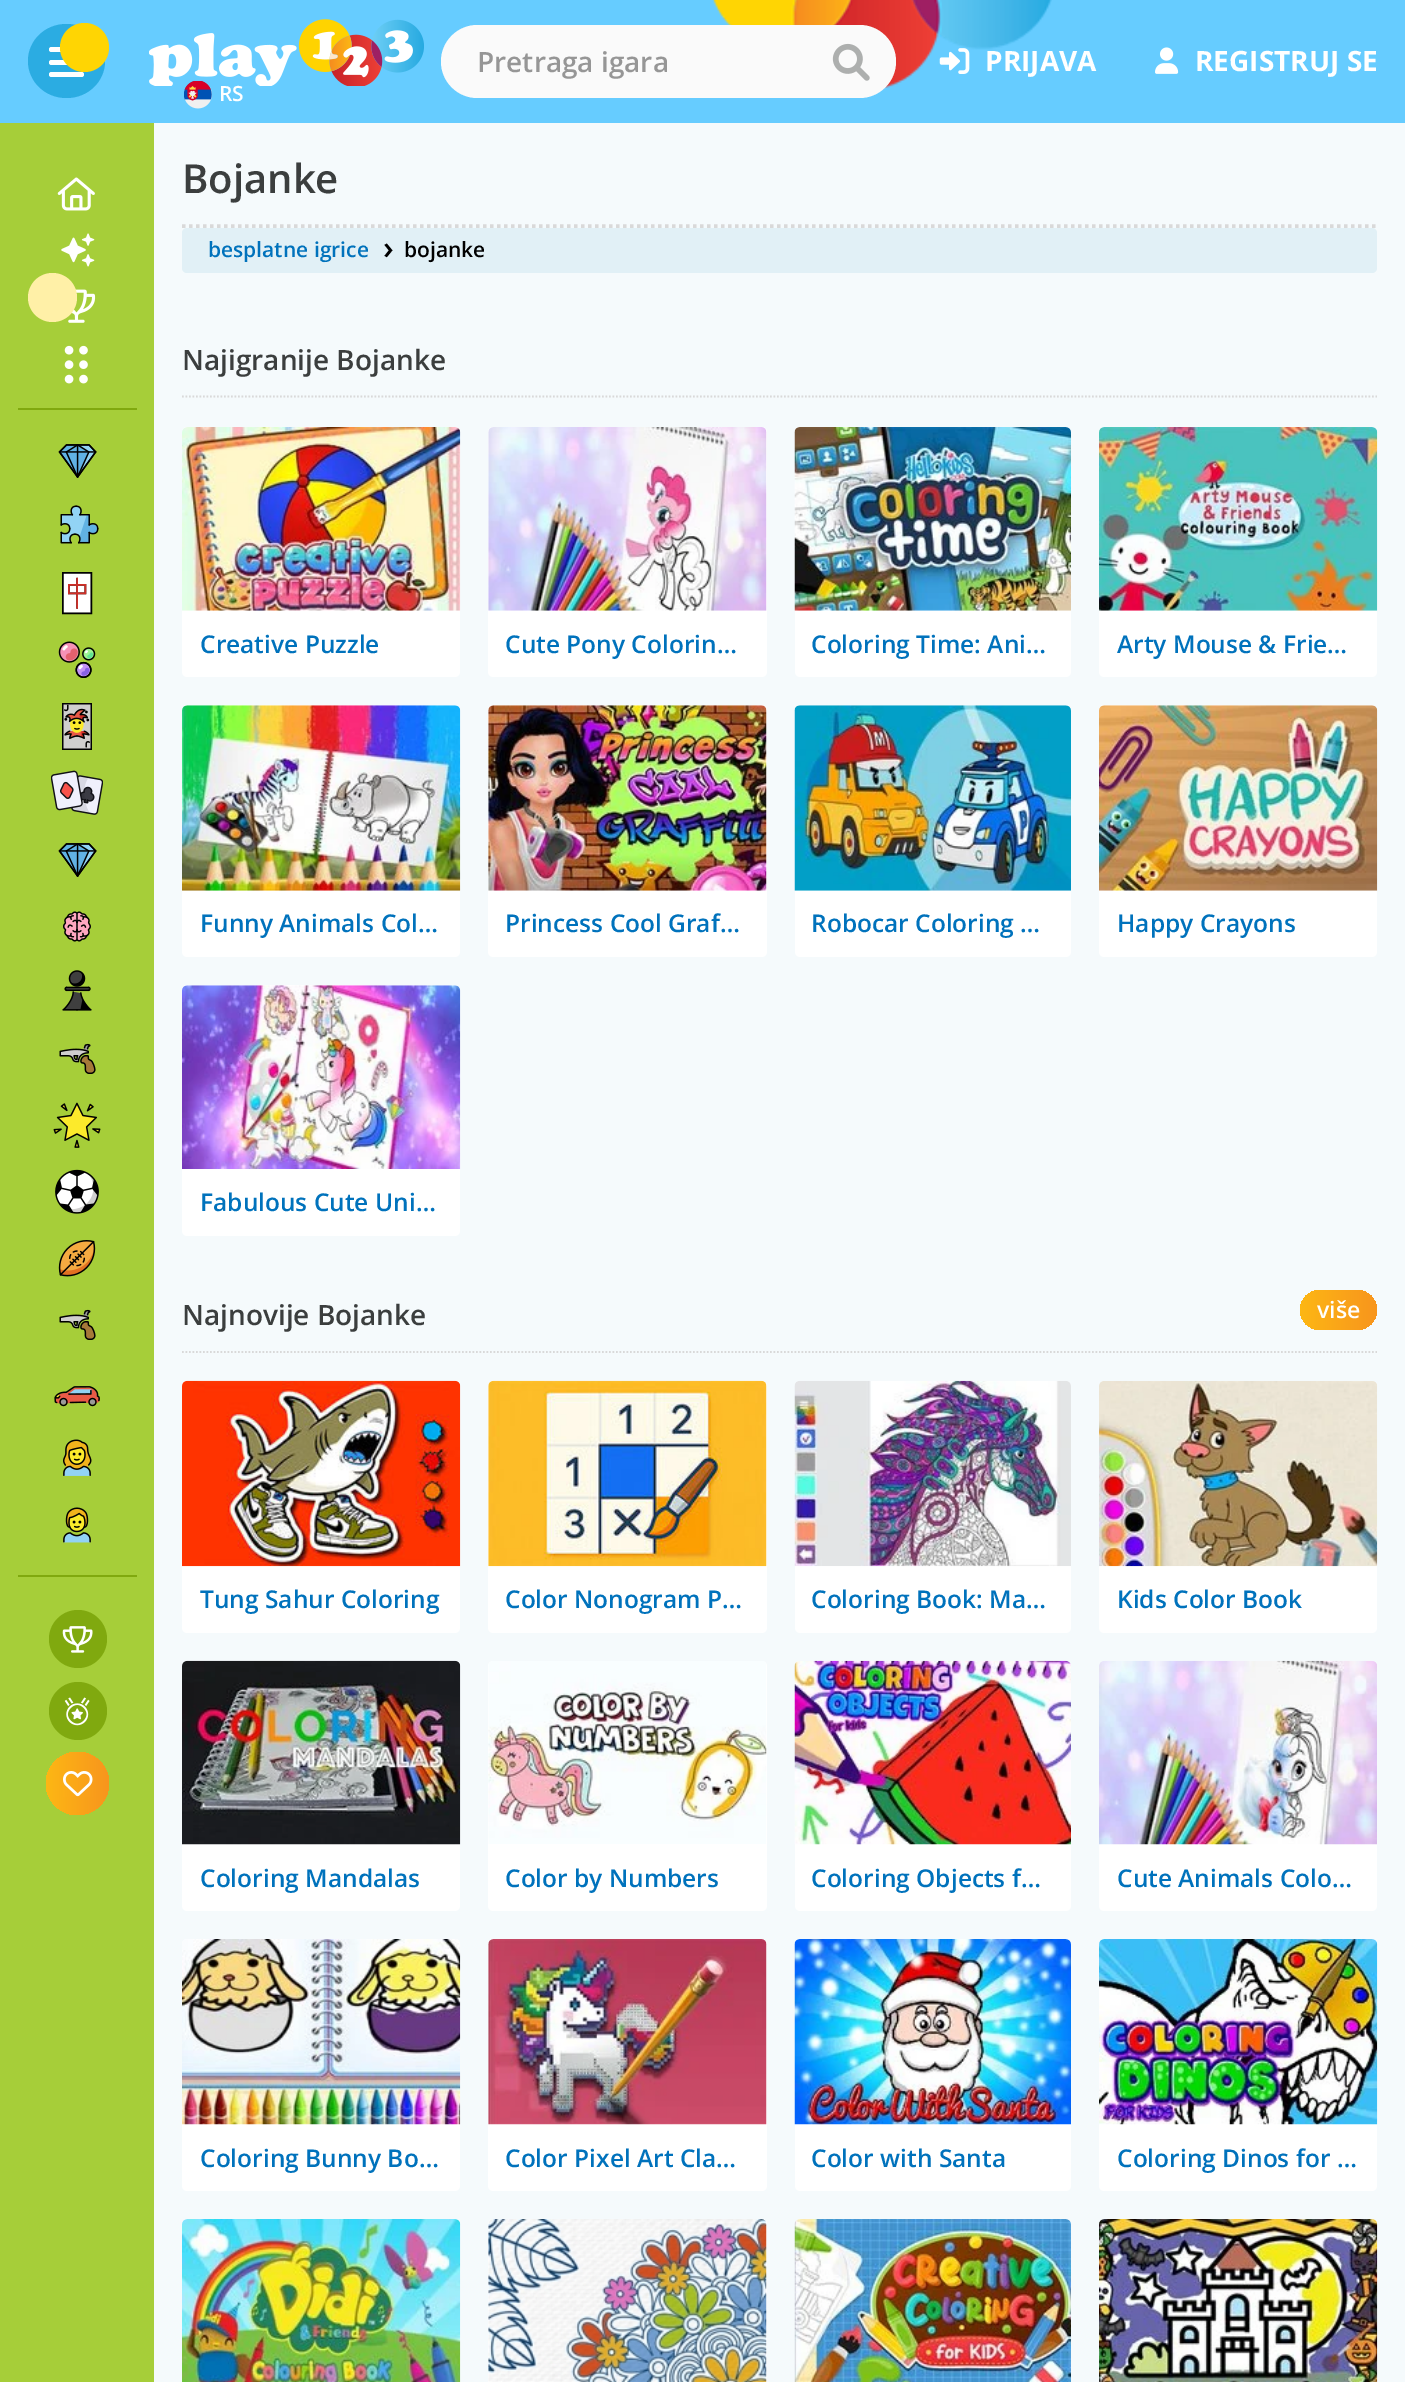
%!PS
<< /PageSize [1405 2382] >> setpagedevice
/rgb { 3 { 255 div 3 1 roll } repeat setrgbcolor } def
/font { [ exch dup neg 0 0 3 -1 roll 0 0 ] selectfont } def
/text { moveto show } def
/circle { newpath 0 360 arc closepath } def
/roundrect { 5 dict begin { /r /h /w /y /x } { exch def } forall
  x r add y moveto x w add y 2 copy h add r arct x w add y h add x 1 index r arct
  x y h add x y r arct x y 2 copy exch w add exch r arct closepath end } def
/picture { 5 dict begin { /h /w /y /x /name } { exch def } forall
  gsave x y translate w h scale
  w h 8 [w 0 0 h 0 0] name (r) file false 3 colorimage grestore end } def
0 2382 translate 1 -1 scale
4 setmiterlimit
245 250 252 rgb
0 0 1405 2382 rectfill
102 204 255 rgb
0 0 1405 123 rectfill
43 172 226 rgb
66.5 24 moveto 21.5 0 38.5 16.5 38.5 37 rcurveto 0 20.5 -17 37 -38.5 37 rcurveto -21.5 0 -38.5 -16.5 -38.5 -37 rcurveto 0 -20.5 17 -37 38.5 -37 rcurveto closepath fill
255 255 255 rgb
49 47 35 5 2.5 roundrect fill
49 60 35 5 2.5 roundrect fill
255 213 3 rgb
84.5 47.5 24.5 circle fill
255 255 255 rgb
49 72 35 5 2.5 roundrect fill
(img_01.rgb) 712 0 340 90 picture
250 250 250 rgb
441 25 455 73 36.5 roundrect fill
(img_02.rgb) 832 43 38 38 picture
(img_03.rgb) 939 48 31 26 picture
(img_04.rgb) 1155 47 24 27 picture
(img_05.rgb) 149 19 275 67 picture
(img_06.rgb) 184 81 28 28 picture
166 206 57 rgb
0 123 154 2259 rectfill
(img_07.rgb) 57 177 38 34 picture
(img_08.rgb) 61 233 34 34 picture
(img_09.rgb) 68 289 28 34 picture
255 240 167 rgb
52.5 297.5 24.5 circle fill
128 169 15 rgb
18 408 119 2 rectfill
(img_10.rgb) 64 345 24 39 picture
(img_11.rgb) 58 444 39 34 picture
(img_12.rgb) 60 505 39 39 picture
255 255 255 rgb
62.75 572.75 moveto 28.5 0 rlineto 0 40.5 rlineto -28.5 0 rlineto closepath gsave fill grestore
0 0 0 rgb
1.5 setlinewidth
stroke
1 setlinecap
1 setlinejoin
77 578.5 moveto 0 29.5 rlineto stroke
0 setlinecap
0 setlinejoin
68.75 584.75 16.5 8.5 rectstroke
210 47 39 rgb
1 setlinecap
1 setlinejoin
77 578.5 moveto 0 29.5 rlineto stroke
0 setlinecap
0 setlinejoin
68.75 584.75 16.5 8.5 rectstroke
(img_13.rgb) 58 641 38 37 picture
(img_14.rgb) 62 703 30 47 picture
(img_15.rgb) 51 770 52 45 picture
(img_11.rgb) 58 843 39 34 picture
(img_16.rgb) 63 911 28 31 picture
(img_17.rgb) 62 970 30 41 picture
(img_18.rgb) 59 1043 37 31 picture
(img_19.rgb) 53 1102 48 46 picture
(img_20.rgb) 55 1169 44 45 picture
(img_21.rgb) 58 1240 38 37 picture
(img_18.rgb) 59 1309 37 31 picture
(img_22.rgb) 54 1386 46 21 picture
(img_23.rgb) 63 1439 29 37 picture
(img_24.rgb) 63 1507 28 36 picture
128 169 15 rgb
18 1575 119 2 rectfill
78 1639 29 circle fill
(img_25.rgb) 62 1626 31 27 picture
78 1711 29 circle fill
(img_26.rgb) 64 1697 26 29 picture
gsave 77.5 1783.5 31.5 circle clip newpath
<< /ShadingType 2 /ColorSpace /DeviceRGB /Coords [46 1783 109 1783] /Extend [true true] /Function << /FunctionType 2 /Domain [0 1] /C0 [0.992 0.718 0.078] /C1 [0.973 0.584 0.114] /N 1 >> >> shfill grestore
(img_27.rgb) 63 1771 30 26 picture
217 217 217 rgb
3.5 setlinewidth
[3.5 3.5] 0 setdash
182 226 moveto 1195 0 rlineto stroke
225 240 246 rgb
182 228 1195 45 5 roundrect fill
217 217 217 rgb
1.8 setlinewidth
[1.75 1.75] 0 setdash
182 396.5 moveto 1195 0 rlineto stroke
255 255 255 rgb
182 427 278 250 5 roundrect fill
(img_28.rgb) 182 427 279 184 picture
488 427 279 250 5 roundrect fill
(img_29.rgb) 488 427 279 184 picture
795 427 276 250 5 roundrect fill
(img_30.rgb) 794 427 277 184 picture
1099 427 278 250 5 roundrect fill
(img_31.rgb) 1099 427 279 184 picture
182 705 278 252 5 roundrect fill
(img_32.rgb) 182 705 279 186 picture
488 705 279 252 5 roundrect fill
(img_33.rgb) 488 705 279 186 picture
795 705 276 252 5 roundrect fill
(img_34.rgb) 794 705 277 186 picture
1099 705 278 252 5 roundrect fill
(img_35.rgb) 1099 705 279 186 picture
182 985 278 251 5 roundrect fill
(img_36.rgb) 182 985 279 184 picture
217 217 217 rgb
182 1352 moveto 1195 0 rlineto stroke
gsave 1300 1290 77 40 20 roundrect clip newpath
<< /ShadingType 2 /ColorSpace /DeviceRGB /Coords [1300 1310 1377 1310] /Extend [true true] /Function << /FunctionType 2 /Domain [0 1] /C0 [0.992 0.718 0.078] /C1 [0.973 0.584 0.114] /N 1 >> >> shfill grestore
255 255 255 rgb
182 1381 278 252 5 roundrect fill
(img_37.rgb) 182 1380 279 187 picture
488 1381 279 252 5 roundrect fill
(img_38.rgb) 488 1380 279 187 picture
795 1381 276 252 5 roundrect fill
(img_39.rgb) 794 1380 277 187 picture
1099 1381 278 252 5 roundrect fill
(img_40.rgb) 1099 1381 279 186 picture
182 1661 278 250 5 roundrect fill
(img_41.rgb) 182 1660 279 185 picture
488 1661 279 250 5 roundrect fill
(img_42.rgb) 488 1661 279 183 picture
795 1661 276 250 5 roundrect fill
(img_43.rgb) 794 1660 277 185 picture
1099 1661 278 250 5 roundrect fill
(img_44.rgb) 1099 1660 278 185 picture
182 1939 278 252 5 roundrect fill
(img_45.rgb) 182 1939 279 186 picture
488 1939 279 252 5 roundrect fill
(img_46.rgb) 488 1939 279 186 picture
795 1939 276 252 5 roundrect fill
(img_47.rgb) 794 1939 277 186 picture
1099 1939 278 252 5 roundrect fill
(img_48.rgb) 1099 1939 279 186 picture
182 2219 278 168 5 roundrect fill
(img_49.rgb) 182 2219 279 163 picture
488 2219 279 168 5 roundrect fill
(img_50.rgb) 488 2219 279 163 picture
795 2219 276 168 5 roundrect fill
(img_51.rgb) 794 2219 277 163 picture
1099 2219 278 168 5 roundrect fill
(img_52.rgb) 1099 2219 279 163 picture
/OpenSans-SemiBold 28 font
150 150 150 rgb
(Pretraga igara) 477 72 text
/OpenSans-Bold 28 font
255 255 255 rgb
(PRIJAVA) 985 71 text
(REGISTRUJ SE) 1195 71 text
/OpenSans-SemiBold 21 font
(RS) 219 101 text
/OpenSans-SemiBold 40 font
59 62 62 rgb
(Bojanke) 182 193 text
/OpenSans-SemiBold 21 font
0 114 188 rgb
(besplatne igrice) 208 257 text
/OpenSans-SemiBold 32 font
0 0 0 rgb
(›) 383 259 text
/OpenSans-SemiBold 21 font
(bojanke) 404 257 text
/OpenSans-SemiBold 28 font
59 62 62 rgb
(Najigranije Bojanke) 182 370 text
/OpenSans-SemiBold 24.5 font
0 114 188 rgb
(Creative Puzzle) 200 653 text
(Cute Pony Colorin…) 505 653 text
(Coloring Time: Ani…) 811 653 text
(Arty Mouse & Frie…) 1117 653 text
(Funny Animals Col…) 200 932 text
(Princess Cool Graf…) 505 932 text
(Robocar Coloring …) 811 932 text
(Happy Crayons) 1117 932 text
(Fabulous Cute Uni…) 200 1211 text
/OpenSans-SemiBold 28 font
59 62 62 rgb
(Najnovije Bojanke) 182 1325 text
/OpenSans-SemiBold 23 font
255 255 255 rgb
(više) 1317 1318 text
/OpenSans-SemiBold 24.5 font
0 114 188 rgb
(Tung Sahur Coloring) 200 1608 text
(Color Nonogram P…) 505 1608 text
(Coloring Book: Ma…) 811 1608 text
(Kids Color Book) 1117 1608 text
(Coloring Mandalas) 200 1887 text
(Color by Numbers) 505 1887 text
(Coloring Objects f…) 811 1887 text
(Cute Animals Colo…) 1117 1887 text
(Coloring Bunny Bo…) 200 2167 text
(Color Pixel Art Cla…) 505 2167 text
(Color with Santa) 811 2167 text
(Coloring Dinos for …) 1117 2167 text
showpage
